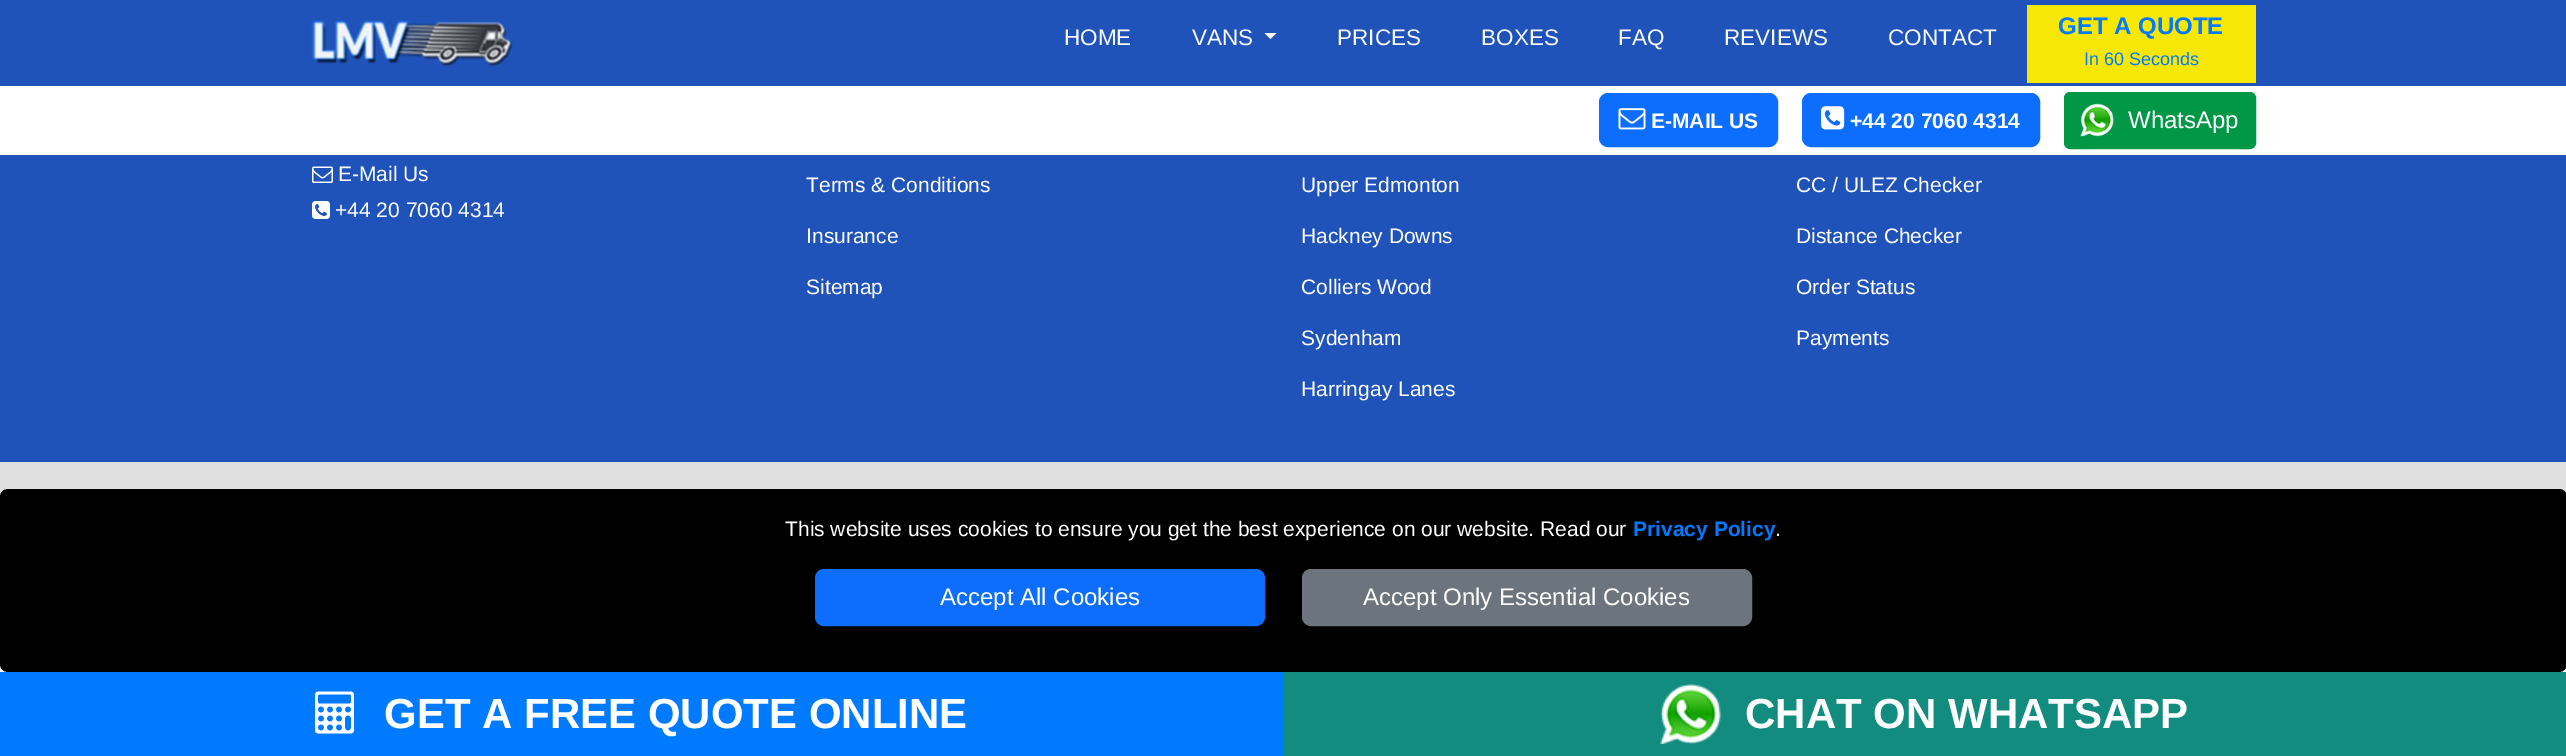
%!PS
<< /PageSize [2566 756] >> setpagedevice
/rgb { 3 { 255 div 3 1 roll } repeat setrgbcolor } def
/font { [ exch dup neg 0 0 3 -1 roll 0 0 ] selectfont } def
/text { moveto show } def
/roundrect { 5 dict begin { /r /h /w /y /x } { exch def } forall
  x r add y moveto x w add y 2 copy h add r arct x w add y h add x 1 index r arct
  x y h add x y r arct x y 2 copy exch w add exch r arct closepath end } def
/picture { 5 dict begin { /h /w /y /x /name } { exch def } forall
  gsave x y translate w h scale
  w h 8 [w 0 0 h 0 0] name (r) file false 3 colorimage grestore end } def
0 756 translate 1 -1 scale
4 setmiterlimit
255 255 255 rgb
0 0 2566 756 rectfill
32 83 186 rgb
0 0 2566 86 rectfill
(img_01.rgb) 311 20 202 47 picture
246 248 252 rgb
1264.5 33 moveto 12 0 rlineto -6 6 rlineto closepath fill
246 231 7 rgb
2027 5 229 78 rectfill
13 110 253 rgb
1600 94 177 52 8 roundrect gsave fill grestore
2 setlinewidth
stroke
(img_02.rgb) 1618 108 28 22 picture
1803 94 236 52 8 roundrect gsave fill grestore
stroke
(img_03.rgb) 1821 106 24 24 picture
0 152 71 rgb
2065 93 190 55 5 roundrect gsave fill grestore
stroke
(img_04.rgb) 2080 103 34 34 picture
32 83 186 rgb
0 155 2566 307 rectfill
(img_05.rgb) 312 166 21 17 picture
(img_06.rgb) 312 201 18 18 picture
224 224 224 rgb
0 462 2566 35 rectfill
0 123 255 rgb
0 672 1284 84 rectfill
(img_07.rgb) 315 691 39 43 picture
18 140 126 rgb
1284 672 1282 84 rectfill
(img_08.rgb) 1660 684 61 60 picture
0 0 0 rgb
0 489 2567 183 8 roundrect fill
13 110 253 rgb
816 570 448 55 8 roundrect gsave fill grestore
stroke
108 117 125 rgb
1303 570 448 55 8 roundrect gsave fill grestore
stroke
/LiberationSans-Regular 22.5 font
246 248 252 rgb
(HOME) 1064 45 text
(VANS) 1192 45 text
(PRICES) 1337 45 text
(BOXES) 1481 45 text
(FAQ) 1618 45 text
(REVIEWS) 1724 45 text
(CONTACT) 1888 45 text
/LiberationSans-Bold 24 font
0 123 255 rgb
(GET A QUOTE) 2058 34 text
/LiberationSans-Regular 18 font
(In 60 Seconds) 2084 65 text
/LiberationSans-Bold 21 font
255 255 255 rgb
(E-MAIL US) 1651 128 text
(+44 20 7060 4314) 1850 128 text
/LiberationSans-Regular 24 font
(WhatsApp) 2128 128 text
/LiberationSans-Regular 21 font
(E-Mail Us) 338 181 text
(+44 20 7060 4314) 335 217 text
(Terms & Conditions) 806 192 text
(Insurance) 806 243 text
(Sitemap) 806 294 text
(Upper Edmonton) 1301 192 text
(Hackney Downs) 1301 243 text
(Colliers Wood) 1301 294 text
(Sydenham) 1301 345 text
(Harringay Lanes) 1301 396 text
(CC / ULEZ Checker) 1796 192 text
(Distance Checker) 1796 243 text
(Order Status) 1796 294 text
(Payments) 1796 345 text
/LiberationSans-Bold 42 font
(GET A FREE QUOTE ONLINE) 384 728 text
(CHAT ON WHATSAPP) 1745 728 text
/LiberationSans-Regular 21 font
(This website uses cookies to ensure you get the best experience on our website. Read our) 785 536 text
/LiberationSans-Bold 21 font
0 123 255 rgb
(Privacy Policy) 1633 536 text
/LiberationSans-Regular 21 font
255 255 255 rgb
(.) 1775 536 text
/LiberationSans-Regular 24 font
(Accept All Cookies) 940 605 text
(Accept Only Essential Cookies) 1363 605 text
showpage
